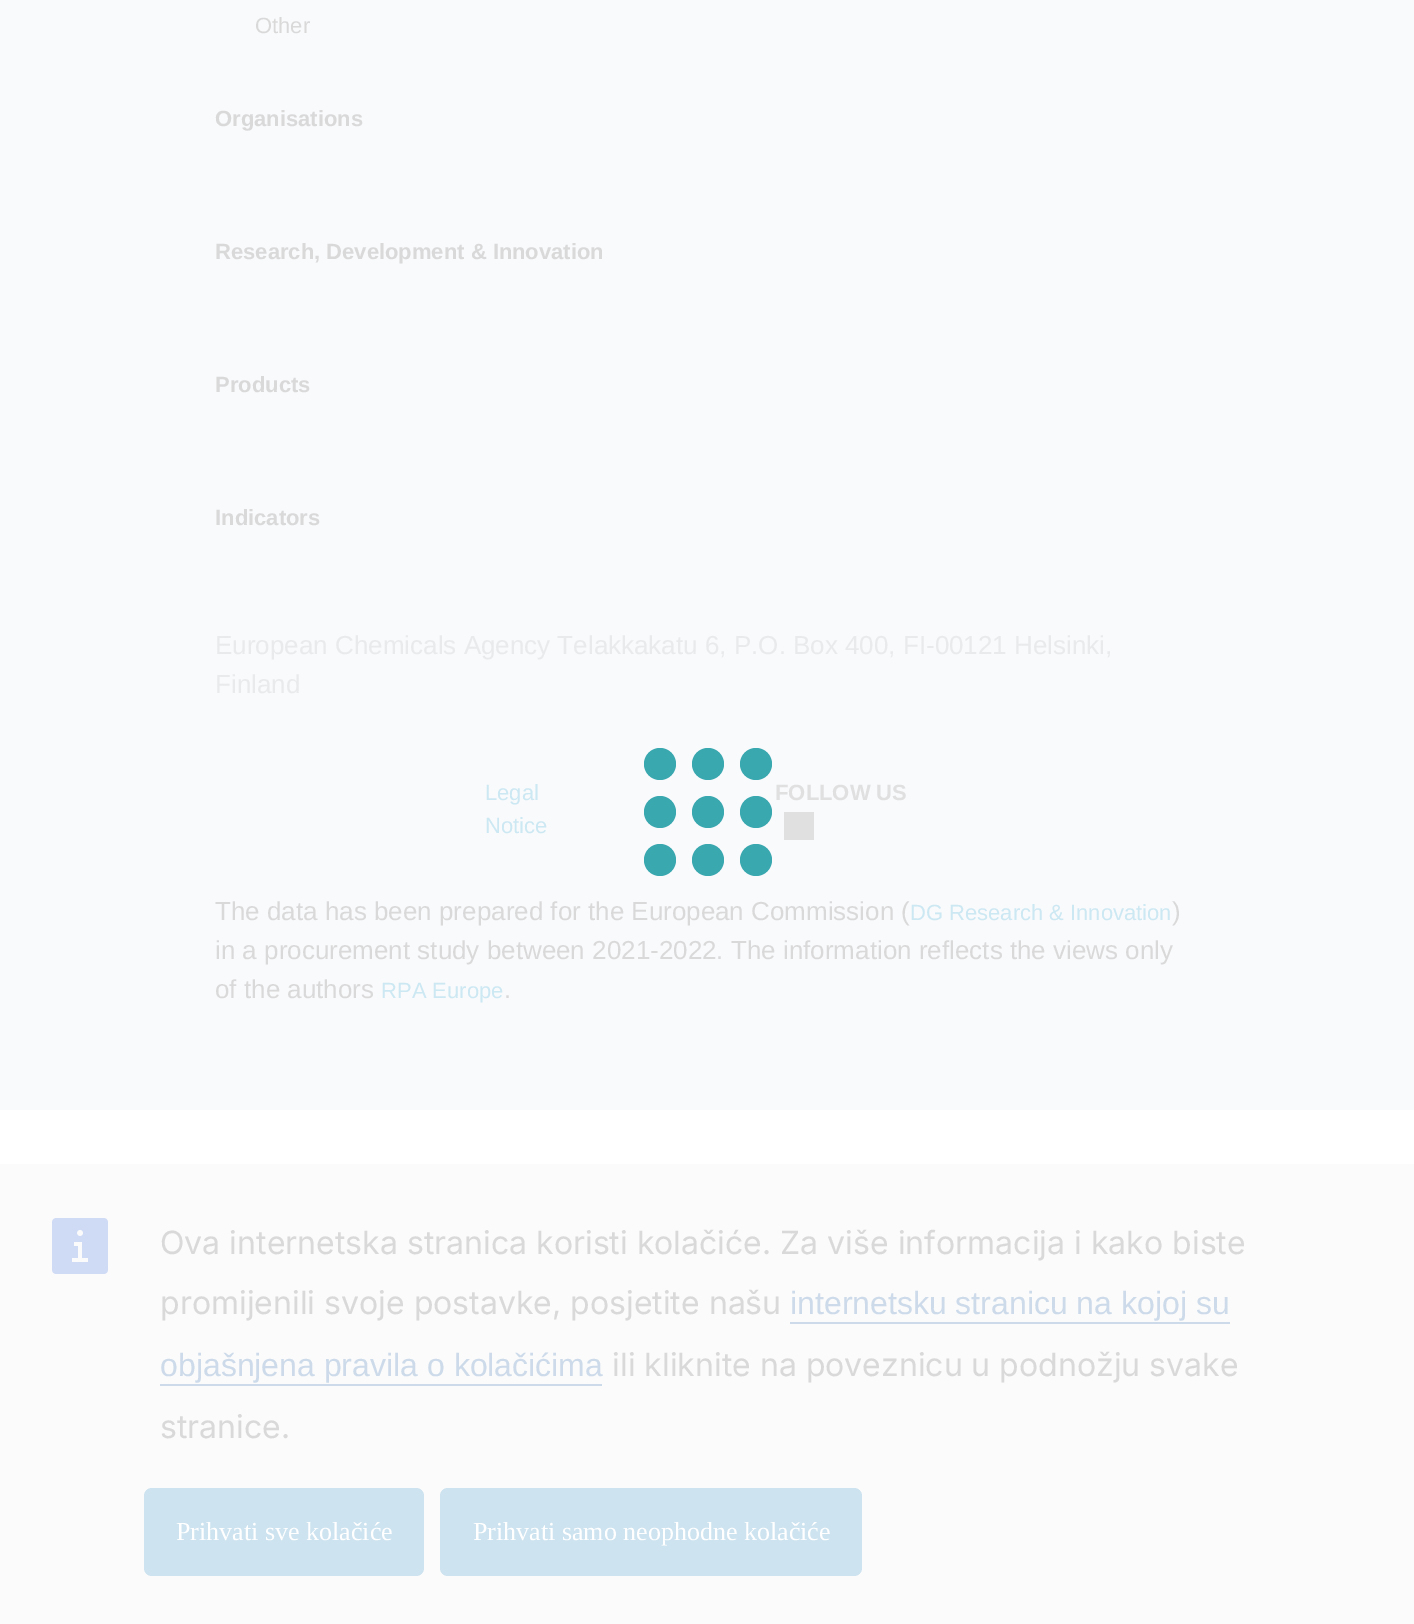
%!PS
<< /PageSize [1414 1624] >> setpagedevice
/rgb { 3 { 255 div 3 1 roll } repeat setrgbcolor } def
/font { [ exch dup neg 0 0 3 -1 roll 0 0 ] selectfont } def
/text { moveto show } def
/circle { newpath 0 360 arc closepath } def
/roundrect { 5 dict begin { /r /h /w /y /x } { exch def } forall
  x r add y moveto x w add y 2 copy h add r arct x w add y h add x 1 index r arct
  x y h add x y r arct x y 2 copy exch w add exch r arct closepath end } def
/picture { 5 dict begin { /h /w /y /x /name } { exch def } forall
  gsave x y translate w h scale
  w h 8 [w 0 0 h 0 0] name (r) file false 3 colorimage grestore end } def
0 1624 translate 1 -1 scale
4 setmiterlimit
255 255 255 rgb
0 0 1414 1624 rectfill
249 250 252 rgb
0 0 1414 1110 rectfill
224 224 225 rgb
784 812 30 28 rectfill
57 168 175 rgb
660 764 16 circle fill
708 764 16 circle fill
756 764 16 circle fill
660 812 16 circle fill
708 812 16 circle fill
756 812 16 circle fill
660 860 16 circle fill
708 860 16 circle fill
756 860 16 circle fill
251 251 251 rgb
0 1164 1414 460 rectfill
(img_01.rgb) 52 1218 56 56 picture
204 218 234 rgb
790 1322 440 2 rectfill
160 1384 442 2 rectfill
205 227 240 rgb
144 1488 280 88 8 roundrect fill
440 1488 422 88 8 roundrect fill
/LiberationSans-Regular 22 font
218 217 218 rgb
(Other) 255 33 text
/LiberationSans-Bold 22 font
(Organisations) 215 126 text
(Research, Development & Innovation) 215 259 text
(Products) 215 392 text
(Indicators) 215 525 text
/LiberationSans-Regular 26 font
233 234 235 rgb
(European Chemicals Agency Telakkakatu 6, P.O. Box 400, FI-00121 Helsinki,) 215 654 text
(Finland) 215 693 text
/LiberationSans-Regular 22 font
204 232 243 rgb
(Legal) 485 800 text
(Notice) 485 833 text
/LiberationSans-Bold 22 font
224 224 225 rgb
(FOLLOW US) 775 800 text
/LiberationSans-Regular 26 font
218 217 218 rgb
(The data has been prepared for the European Commission \() 215 920 text
/LiberationSans-Regular 22 font
204 232 243 rgb
(DG Research & Innovation) 910 920 text
/LiberationSans-Regular 26 font
218 217 218 rgb
(\)) 1172 920 text
(in a procurement study between 2021-2022. The information reflects the views only) 215 959 text
(of the authors) 215 998 text
/LiberationSans-Regular 22 font
204 232 243 rgb
(RPA Europe) 381 998 text
/LiberationSans-Regular 26 font
218 217 218 rgb
(.) 504 998 text
/Inter-Regular 32 font
(Ova internetska stranica koristi kolačiće. Za više informacija i kako biste) 160 1254 text
(promijenili svoje postavke, posjetite našu) 160 1314 text
/LiberationSans-Regular 32 font
204 218 234 rgb
(internetsku stranicu na kojoj su) 790 1314 text
(objašnjena pravila o kolačićima) 160 1376 text
/Inter-Regular 32 font
218 217 218 rgb
(ili kliknite na poveznicu u podnožju svake) 612 1376 text
(stranice.) 160 1438 text
/LiberationSerif-Regular 26 font
255 255 255 rgb
(Prihvati sve kolačiće) 176 1540 text
(Prihvati samo neophodne kolačiće) 473 1540 text
showpage
